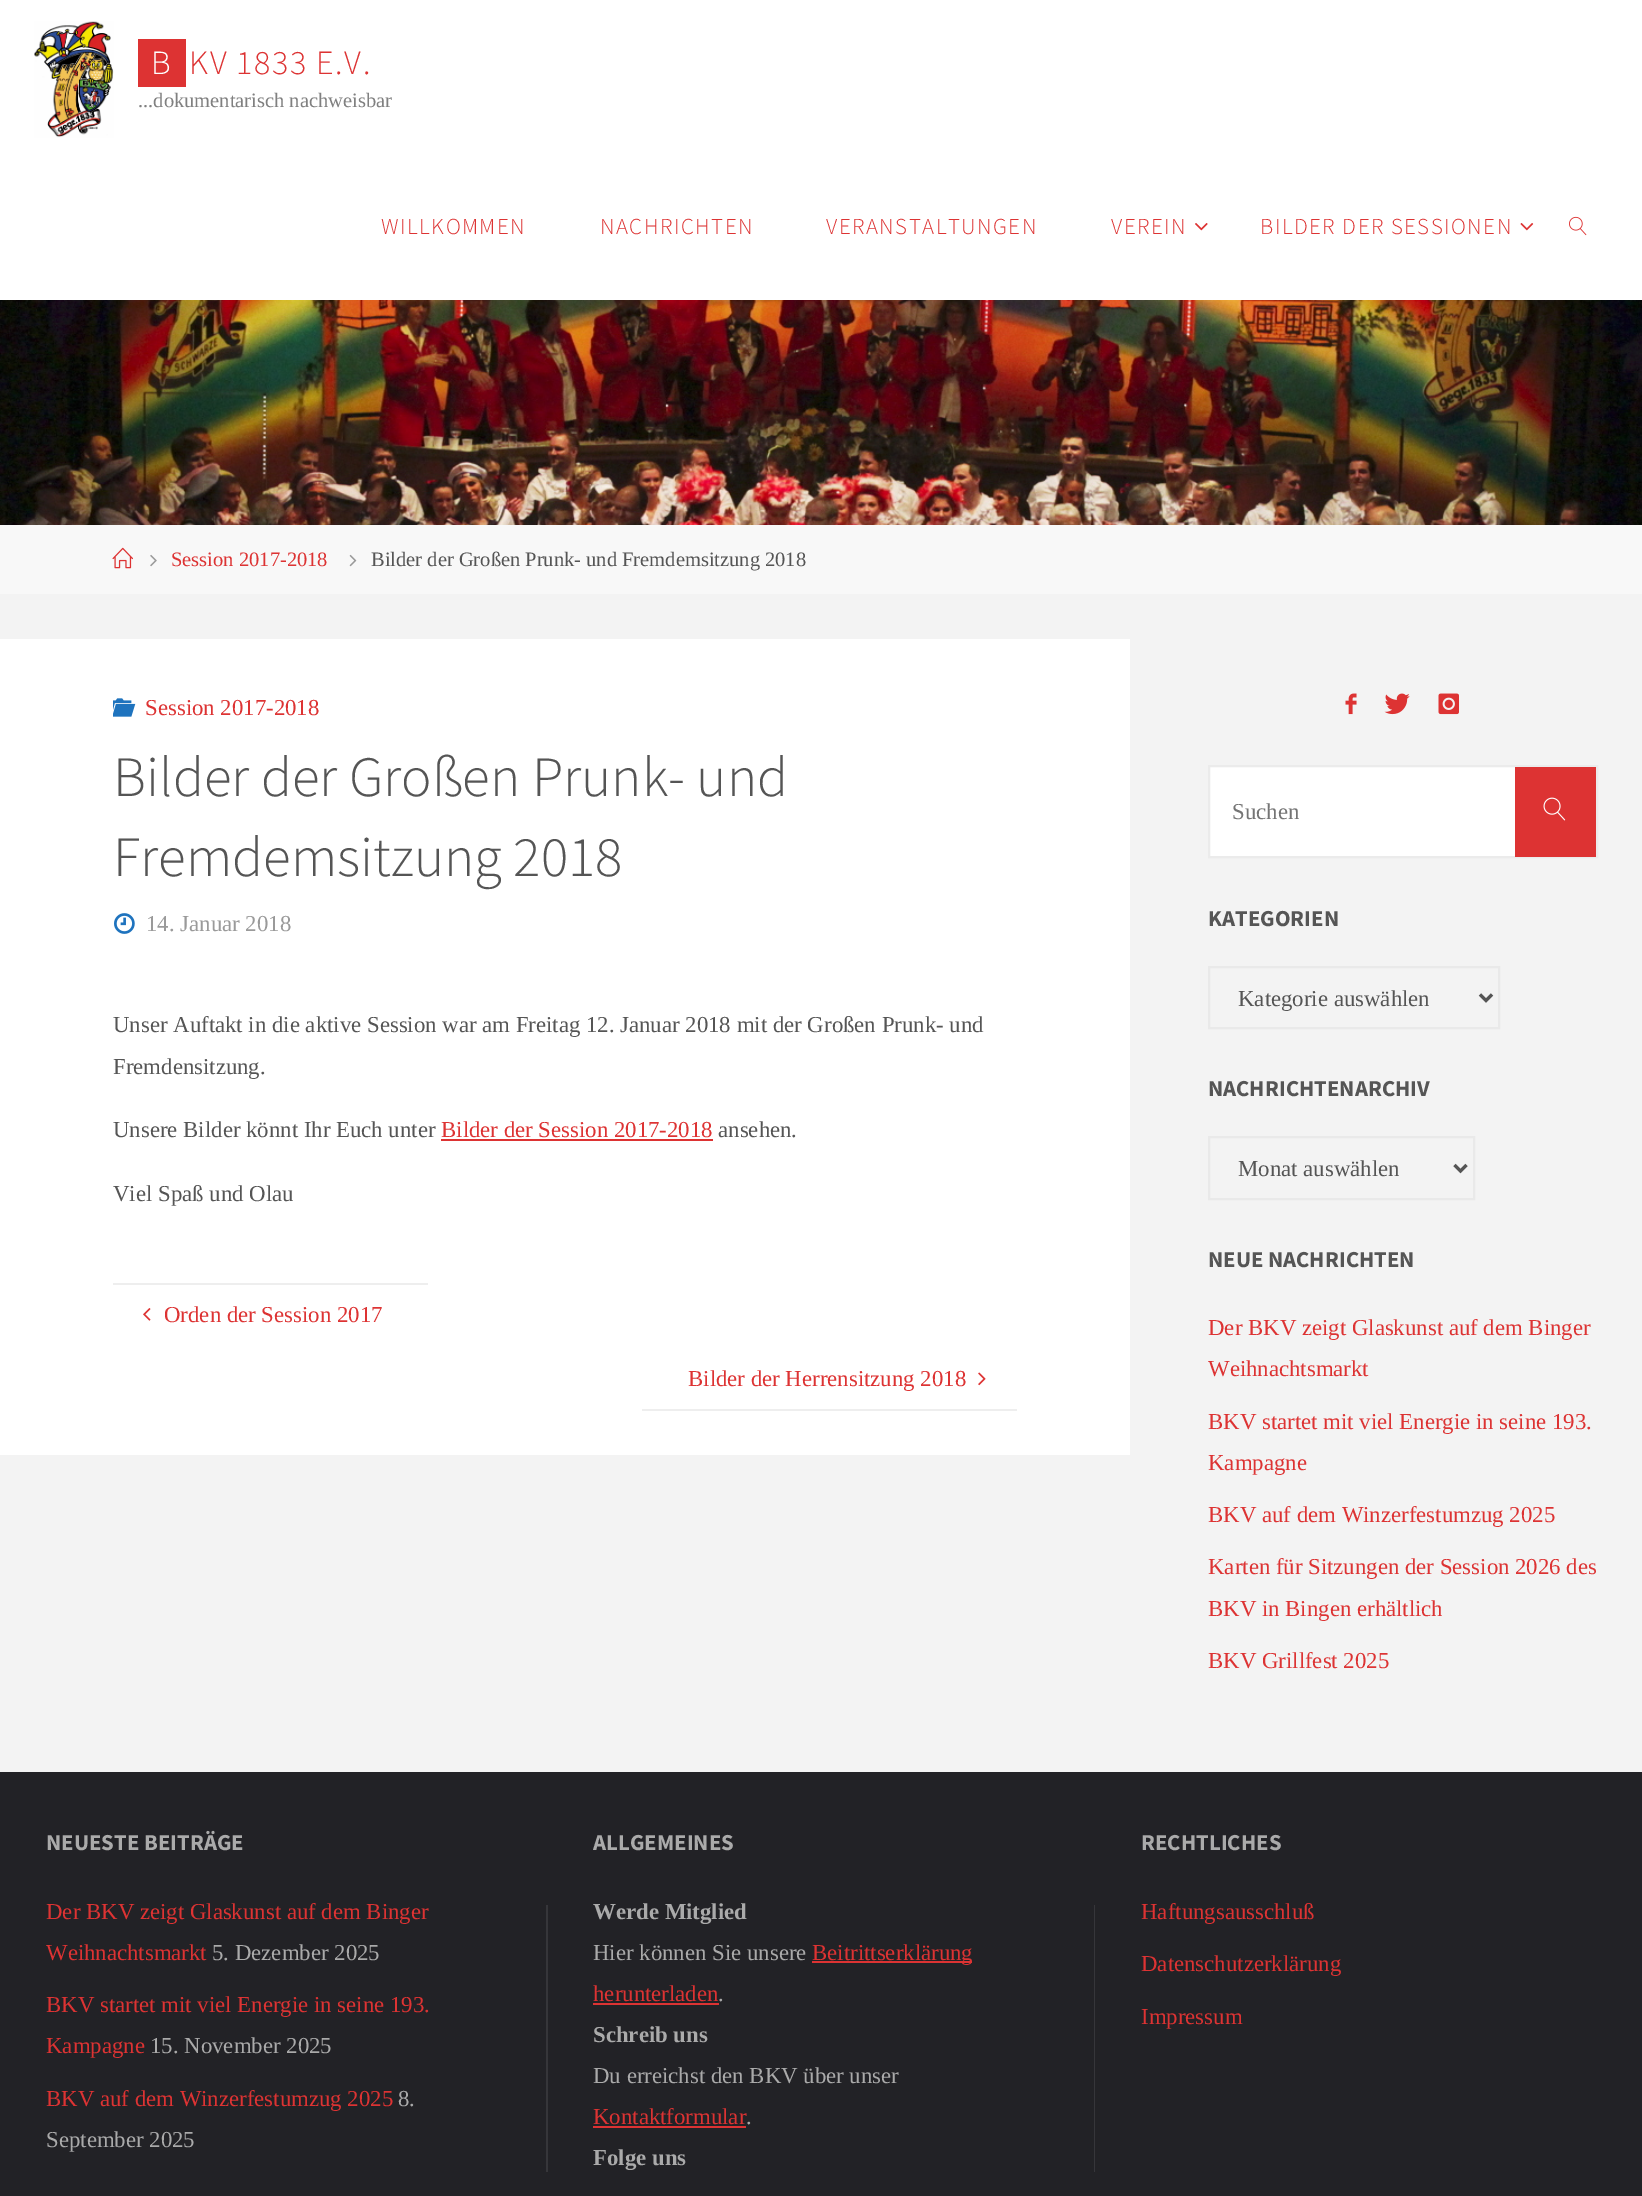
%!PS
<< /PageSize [1642 2196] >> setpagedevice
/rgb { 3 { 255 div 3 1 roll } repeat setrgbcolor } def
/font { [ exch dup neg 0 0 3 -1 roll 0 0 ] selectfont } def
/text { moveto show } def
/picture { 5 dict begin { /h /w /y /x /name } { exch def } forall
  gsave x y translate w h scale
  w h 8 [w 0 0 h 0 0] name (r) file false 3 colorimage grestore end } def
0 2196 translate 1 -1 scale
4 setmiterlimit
243 243 243 rgb
0 0 1642 2196 rectfill
255 255 255 rgb
0 0 1642 300 rectfill
(img_01.rgb) 34 21 80 117 picture
221 51 51 rgb
138 39 48 48 rectfill
(img_02.rgb) 1195 223 13 8 picture
(img_03.rgb) 1520 223 14 8 picture
(img_04.rgb) 1569 216 18 20 picture
(img_05.rgb) 0 300 1642 225 picture
248 248 248 rgb
0 525 1642 69 rectfill
(img_06.rgb) 112 547 21 22 picture
(img_07.rgb) 150 554 7 13 picture
(img_08.rgb) 349 554 8 13 picture
255 255 255 rgb
0 639 1130 816 rectfill
(img_09.rgb) 113 698 23 19 picture
(img_10.rgb) 114 913 21 21 picture
221 51 51 rgb
441 1139 272 2 rectfill
238 238 238 rgb
113 1283 315 2 rectfill
(img_11.rgb) 143 1308 8 13 picture
(img_12.rgb) 978 1372 8 14 picture
642 1409 375 2 rectfill
(img_13.rgb) 1345 693 12 22 picture
(img_14.rgb) 1384 693 26 22 picture
(img_15.rgb) 1438 693 21 22 picture
255 255 255 rgb
1210 767 305 89 rectfill
235 235 235 rgb
2 setlinewidth
1209 766 388 91 rectstroke
221 51 51 rgb
1515 767 81 90 rectfill
(img_16.rgb) 1543 797 23 24 picture
233 233 233 rgb
1209 967 290 61 rectstroke
85 85 85 rgb
3 setlinewidth
1480 994.5 moveto 6 6 rlineto 6 -6 rlineto stroke
233 233 233 rgb
2 setlinewidth
1209 1137 265 62 rectstroke
85 85 85 rgb
3 setlinewidth
1454.5 1165 moveto 6 6 rlineto 6 -6 rlineto stroke
34 34 38 rgb
0 1772 1642 424 rectfill
54 54 58 rgb
546 1905 2 267 rectfill
221 51 51 rgb
812 1961 160 2 rectfill
593 2003 126 2 rectfill
593 2126 153 2 rectfill
54 54 58 rgb
1094 1905 1 267 rectfill
/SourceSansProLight-Light 34 font
255 255 255 rgb
(B) 151 74 text
221 51 51 rgb
(K) 189 74 text
(V) 210 74 text
(1) 236 74 text
(8) 254 74 text
(3) 272 74 text
(3) 290 74 text
(E) 316 74 text
(.) 335 74 text
(V) 344 74 text
(.) 363 74 text
/LiberationSerif-Regular 20.5 font
128 128 128 rgb
(...dokumentarisch nachweisbar) 138 107 text
/SourceSansProLight-Light 22.8 font
221 51 51 rgb
381 234 moveto 1.5 0 (WILLKOMMEN) ashow
600 234 moveto 1.5 0 (NACHRICHTEN) ashow
826 234 moveto 1.5 0 (VERANSTALTUNGEN) ashow
1111 234 moveto 1.5 0 (VEREIN) ashow
1260 234 moveto 1.5 0 (BILDER DER SESSIONEN) ashow
/LiberationSerif-Regular 20.5 font
(Session 2017-2018) 171 566 text
85 85 85 rgb
(Bilder der Großen Prunk- und Fremdemsitzung 2018) 371 566 text
/LiberationSerif-Regular 22.8 font
221 51 51 rgb
(Session 2017-2018) 145 715 text
/SourceSansProLight-Light 57 font
85 85 85 rgb
(Bilder der Großen Prunk- und) 113 796 text
(Fremdemsitzung 2018) 113 876 text
/LiberationSerif-Regular 22.8 font
154 154 154 rgb
(14. Januar 2018) 146 931 text
85 85 85 rgb
(Unser Auftakt in die aktive Session war am Freitag 12. Januar 2018 mit der Großen Prunk- und) 113 1032 text
(Fremdensitzung.) 113 1074 text
(Unsere Bilder könnt Ihr Euch unter) 113 1137 text
221 51 51 rgb
(Bilder der Session 2017-2018) 441 1137 text
85 85 85 rgb
(ansehen.) 718 1137 text
(Viel Spaß und Olau) 113 1201 text
221 51 51 rgb
(Orden der Session 2017) 164 1322 text
(Bilder der Herrensitzung 2018) 688 1386 text
117 117 117 rgb
(Suchen) 1232 819 text
/SourceSansPro-Bold 22.8 font
85 85 85 rgb
(KATEGORIEN) 1208 926 text
/LiberationSerif-Regular 22.8 font
(Kategorie auswählen) 1238 1006 text
/SourceSansPro-Bold 22.8 font
(NACHRICHTENARCHIV) 1208 1096 text
/LiberationSerif-Regular 22.8 font
(Monat auswählen) 1238 1176 text
/SourceSansPro-Bold 22.8 font
(NEUE NACHRICHTEN) 1208 1267 text
/LiberationSerif-Regular 22.8 font
221 51 51 rgb
(Der BKV zeigt Glaskunst auf dem Binger) 1208 1335 text
(Weihnachtsmarkt) 1208 1376 text
(BKV startet mit viel Energie in seine 193.) 1208 1429 text
(Kampagne) 1208 1470 text
(BKV auf dem Winzerfestumzug 2025) 1208 1522 text
(Karten für Sitzungen der Session 2026 des) 1208 1574 text
(BKV in Bingen erhältlich) 1208 1616 text
(BKV Grillfest 2025) 1208 1668 text
/SourceSansPro-Bold 22.8 font
170 170 170 rgb
(NEUESTE BEITRÄGE) 46 1850 text
/LiberationSerif-Regular 22.8 font
221 51 51 rgb
(Der BKV zeigt Glaskunst auf dem Binger) 46 1919 text
(Weihnachtsmarkt) 46 1960 text
170 170 170 rgb
(5. Dezember 2025) 212 1960 text
221 51 51 rgb
(BKV startet mit viel Energie in seine 193.) 46 2012 text
(Kampagne) 46 2053 text
170 170 170 rgb
(15. November 2025) 150 2053 text
221 51 51 rgb
(BKV auf dem Winzerfestumzug 2025) 46 2106 text
170 170 170 rgb
(8.) 398 2106 text
(September 2025) 46 2147 text
/SourceSansPro-Bold 22.8 font
(ALLGEMEINES) 593 1850 text
/LiberationSerif-Bold 22.8 font
(Werde Mitglied) 593 1919 text
/LiberationSerif-Regular 22.8 font
(Hier können Sie unsere) 593 1960 text
221 51 51 rgb
(Beitrittserklärung) 812 1960 text
(herunterladen) 593 2001 text
170 170 170 rgb
(.) 718 2001 text
/LiberationSerif-Bold 22.8 font
(Schreib uns) 593 2042 text
/LiberationSerif-Regular 22.8 font
(Du erreichst den BKV über unser) 593 2083 text
221 51 51 rgb
(Kontaktformular) 593 2124 text
170 170 170 rgb
(.) 746 2124 text
/LiberationSerif-Bold 22.8 font
(Folge uns) 593 2165 text
/SourceSansPro-Bold 22.8 font
(RECHTLICHES) 1141 1850 text
/LiberationSerif-Regular 22.8 font
221 51 51 rgb
(Haftungsausschluß) 1141 1919 text
(Datenschutzerklärung) 1141 1971 text
(Impressum) 1141 2024 text
showpage
